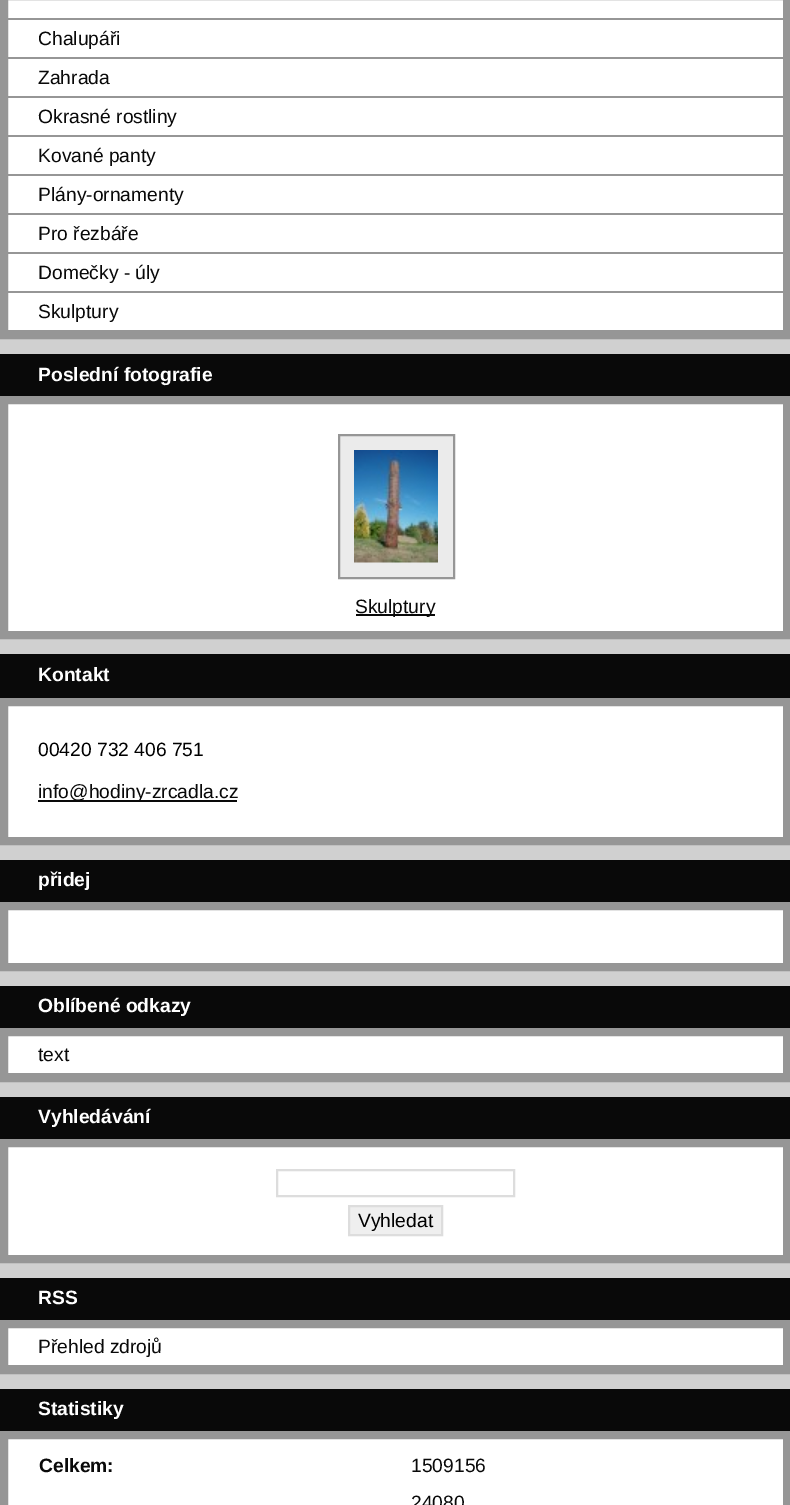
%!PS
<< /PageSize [790 1505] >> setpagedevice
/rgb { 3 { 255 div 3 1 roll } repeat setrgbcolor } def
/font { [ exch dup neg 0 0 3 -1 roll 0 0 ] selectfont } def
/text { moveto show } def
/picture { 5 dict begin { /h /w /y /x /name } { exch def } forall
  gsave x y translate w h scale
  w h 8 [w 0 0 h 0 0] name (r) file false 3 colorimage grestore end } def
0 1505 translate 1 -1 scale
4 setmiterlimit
208 208 208 rgb
0 0 790 1505 rectfill
255 255 255 rgb
8 0 775 330 rectfill
150 150 150 rgb
8 setlinewidth
4 -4 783 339 rectstroke
8 18 775 2 rectfill
8 57 775 2 rectfill
8 96 775 2 rectfill
8 135 775 2 rectfill
8 174 775 2 rectfill
8 213 775 2 rectfill
8 252 775 2 rectfill
8 291 775 2 rectfill
8 330 775 1 rectfill
9 9 9 rgb
0 354 790 42 rectfill
255 255 255 rgb
4 400 moveto 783 0 rlineto 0 235 rlineto -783 0 rlineto closepath gsave fill grestore
150 150 150 rgb
stroke
235 235 235 rgb
339 435 moveto 115 0 rlineto 0 143 rlineto -115 0 rlineto closepath gsave fill grestore
150 150 150 rgb
2 setlinewidth
stroke
(img_01.rgb) 354 450 84 113 picture
9 9 9 rgb
356 614 79 2 rectfill
0 654 790 44 rectfill
255 255 255 rgb
4 702 moveto 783 0 rlineto 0 139 rlineto -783 0 rlineto closepath gsave fill grestore
150 150 150 rgb
8 setlinewidth
stroke
9 9 9 rgb
38 800 199 2 rectfill
0 860 790 42 rectfill
255 255 255 rgb
4 906 moveto 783 0 rlineto 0 61 rlineto -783 0 rlineto closepath gsave fill grestore
150 150 150 rgb
stroke
9 9 9 rgb
0 986 790 42 rectfill
255 255 255 rgb
8 1036 775 37 rectfill
150 150 150 rgb
4 1032 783 46 rectstroke
8 1073 775 1 rectfill
9 9 9 rgb
0 1097 790 42 rectfill
255 255 255 rgb
4 1143 moveto 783 0 rlineto 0 116 rlineto -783 0 rlineto closepath gsave fill grestore
150 150 150 rgb
stroke
221 221 221 rgb
2 setlinewidth
277 1170 237 26 rectstroke
239 239 239 rgb
349 1206 moveto 93 0 rlineto 0 29 rlineto -93 0 rlineto closepath gsave fill grestore
221 221 221 rgb
stroke
9 9 9 rgb
0 1278 790 42 rectfill
255 255 255 rgb
8 1328 775 37 rectfill
150 150 150 rgb
8 setlinewidth
4 1324 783 46 rectstroke
8 1365 775 1 rectfill
9 9 9 rgb
0 1389 790 42 rectfill
255 255 255 rgb
4 1435 moveto 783 0 rlineto 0 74 rlineto -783 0 rlineto closepath gsave fill grestore
150 150 150 rgb
stroke
/LiberationSans-Regular 19.25 font
9 9 9 rgb
(Chalupáři) 38 45 text
(Zahrada) 38 84 text
(Okrasné rostliny) 38 123 text
(Kované panty) 38 162 text
(Plány-ornamenty) 38 201 text
(Pro řezbáře) 38 240 text
(Domečky - úly) 38 279 text
(Skulptury) 38 318 text
/LiberationSans-Bold 19.25 font
255 255 255 rgb
(Poslední fotografie) 38 381 text
/LiberationSans-Regular 19.25 font
9 9 9 rgb
(Skulptury) 355 613 text
/LiberationSans-Bold 19.25 font
255 255 255 rgb
(Kontakt) 38 681 text
/LiberationSans-Regular 19.25 font
0 0 0 rgb
(00420 732 406 751) 38 756 text
9 9 9 rgb
(info@hodiny-zrcadla.cz) 38 798 text
/LiberationSans-Bold 19.25 font
255 255 255 rgb
(přidej) 38 886 text
(Oblíbené odkazy) 38 1012 text
/LiberationSans-Regular 19.25 font
9 9 9 rgb
(text) 38 1061 text
/LiberationSans-Bold 19.25 font
255 255 255 rgb
(Vyhledávání) 38 1123 text
/LiberationSans-Regular 19.25 font
0 0 0 rgb
(Vyhledat) 358 1227 text
/LiberationSans-Bold 19.25 font
255 255 255 rgb
(RSS) 38 1304 text
/LiberationSans-Regular 19.25 font
9 9 9 rgb
(Přehled zdrojů) 38 1353 text
/LiberationSans-Bold 19.25 font
255 255 255 rgb
(Statistiky) 38 1415 text
9 9 9 rgb
(Celkem:) 39 1472 text
/LiberationSans-Regular 19.25 font
(1509156) 411 1472 text
(24080) 411 1509 text
showpage
